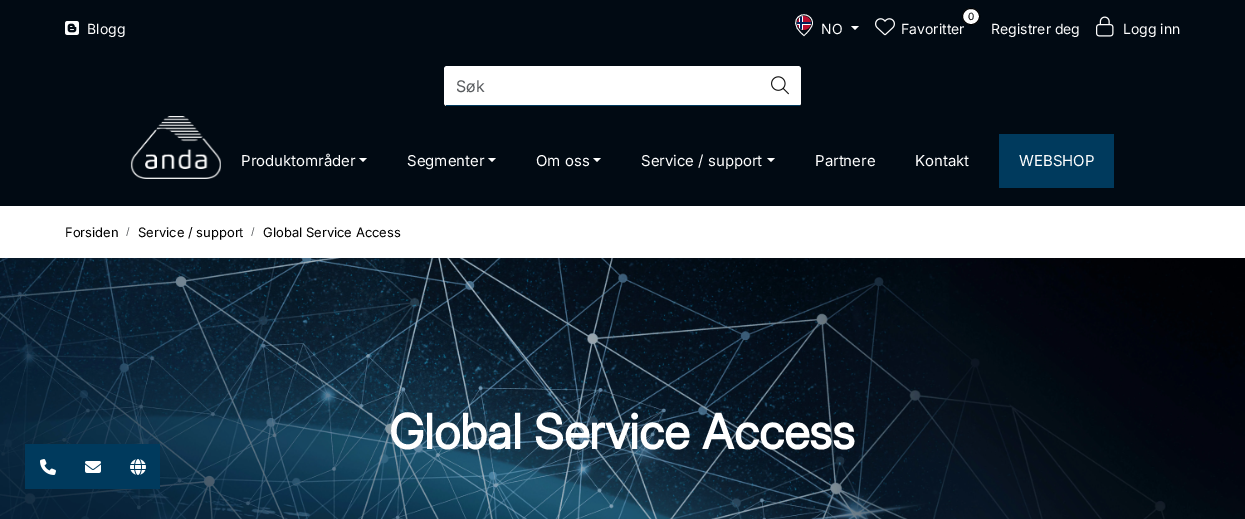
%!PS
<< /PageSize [1245 519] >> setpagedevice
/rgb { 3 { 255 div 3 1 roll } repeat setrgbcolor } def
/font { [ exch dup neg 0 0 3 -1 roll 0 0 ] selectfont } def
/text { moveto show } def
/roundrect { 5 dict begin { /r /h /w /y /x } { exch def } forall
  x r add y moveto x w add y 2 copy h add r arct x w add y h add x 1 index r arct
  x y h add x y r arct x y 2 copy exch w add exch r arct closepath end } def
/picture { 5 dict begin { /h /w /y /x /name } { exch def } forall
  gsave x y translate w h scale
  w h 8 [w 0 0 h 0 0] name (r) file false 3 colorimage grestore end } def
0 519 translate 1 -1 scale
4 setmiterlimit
255 255 255 rgb
0 0 1245 519 rectfill
1 10 19 rgb
0 0 1245 206 rectfill
(img_01.rgb) 65 21 14 14 picture
(img_02.rgb) 797 16 14 14 picture
255 255 255 rgb
0.8 setlinewidth
812.5 23 moveto 0 4.5 -5.5 10 -8.5 12.5 rcurveto -4.5 -3.5 -11.5 -10.5 -7 -17 rcurveto 4.5 -7 15.5 -3.5 15.5 4.5 rcurveto closepath stroke
851 26 moveto 8 0 rlineto -4 4 rlineto closepath fill
962.5 8.5 17 16 8 roundrect gsave fill grestore
0 0 0 rgb
1 setlinewidth
stroke
(img_03.rgb) 875 18 20 18 picture
(img_04.rgb) 1096 16 18 21 picture
255 255 255 rgb
447 66 moveto 313 0 rlineto 0 40 rlineto -313 0 rlineto -1.5 0 -3 -1.5 -3 -3 rcurveto 0 -34 rlineto 0 -1.5 1.5 -3 3 -3 rcurveto closepath fill
0 58 93 rgb
446 105 314 1 rectfill
255 255 255 rgb
759 66 moveto 39 0 rlineto 1.5 0 3 1.5 3 3 rcurveto 0 34 rlineto 0 1.5 -1.5 3 -3 3 rcurveto -39 0 rlineto closepath fill
0 58 93 rgb
759 105 41 1 rectfill
(img_05.rgb) 771 76 18 19 picture
(img_06.rgb) 130 116 91 63 picture
255 255 255 rgb
359 158 moveto 8 0 rlineto -4 4 rlineto closepath fill
488 158 moveto 8 0 rlineto -4 4 rlineto closepath fill
593 158 moveto 8 0 rlineto -4 4 rlineto closepath fill
767 158 moveto 8 0 rlineto -4 4 rlineto closepath fill
0 58 93 rgb
999 134 115 54 rectfill
(img_07.rgb) 0 258 1245 261 picture
25 444 135 45 rectfill
(img_08.rgb) 40 459 16 16 picture
(img_09.rgb) 85 461 16 12 picture
(img_10.rgb) 130 459 16 16 picture
/Inter-Regular 14 font
255 255 255 rgb
(Blogg) 87 34 text
(NO) 821 34 text
/Inter-Regular 10 font
0 0 0 rgb
(0) 968 20 text
/Inter-Regular 14 font
255 255 255 rgb
(Favoritter) 901 34 text
(Registrer deg) 991 34 text
(Logg inn) 1123 34 text
/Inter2-Regular 16 font
89 92 95 rgb
(Søk) 456 92 text
/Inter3-Regular 15 font
255 255 255 rgb
(Produktområder) 241 166 text
(Segmenter) 407 166 text
(Om oss) 536 166 text
(Service / support) 641 166 text
(Partnere) 815 166 text
(Kontakt) 915 166 text
(WEBSHOP) 1019 166 text
/Inter-Regular 13 font
0 0 0 rgb
(Forsiden) 65 237 text
/Inter-Regular 10 font
89 92 95 rgb
(/) 126 235 text
/Inter-Regular 13 font
0 0 0 rgb
(Service / support) 138 237 text
/Inter-Regular 10 font
89 92 95 rgb
(/) 251 235 text
/Inter-Regular 13 font
0 0 0 rgb
(Global Service Access) 263 237 text
/Inter-Bold 48 font
255 255 255 rgb
(Global Service Access) 389 449 text
showpage
